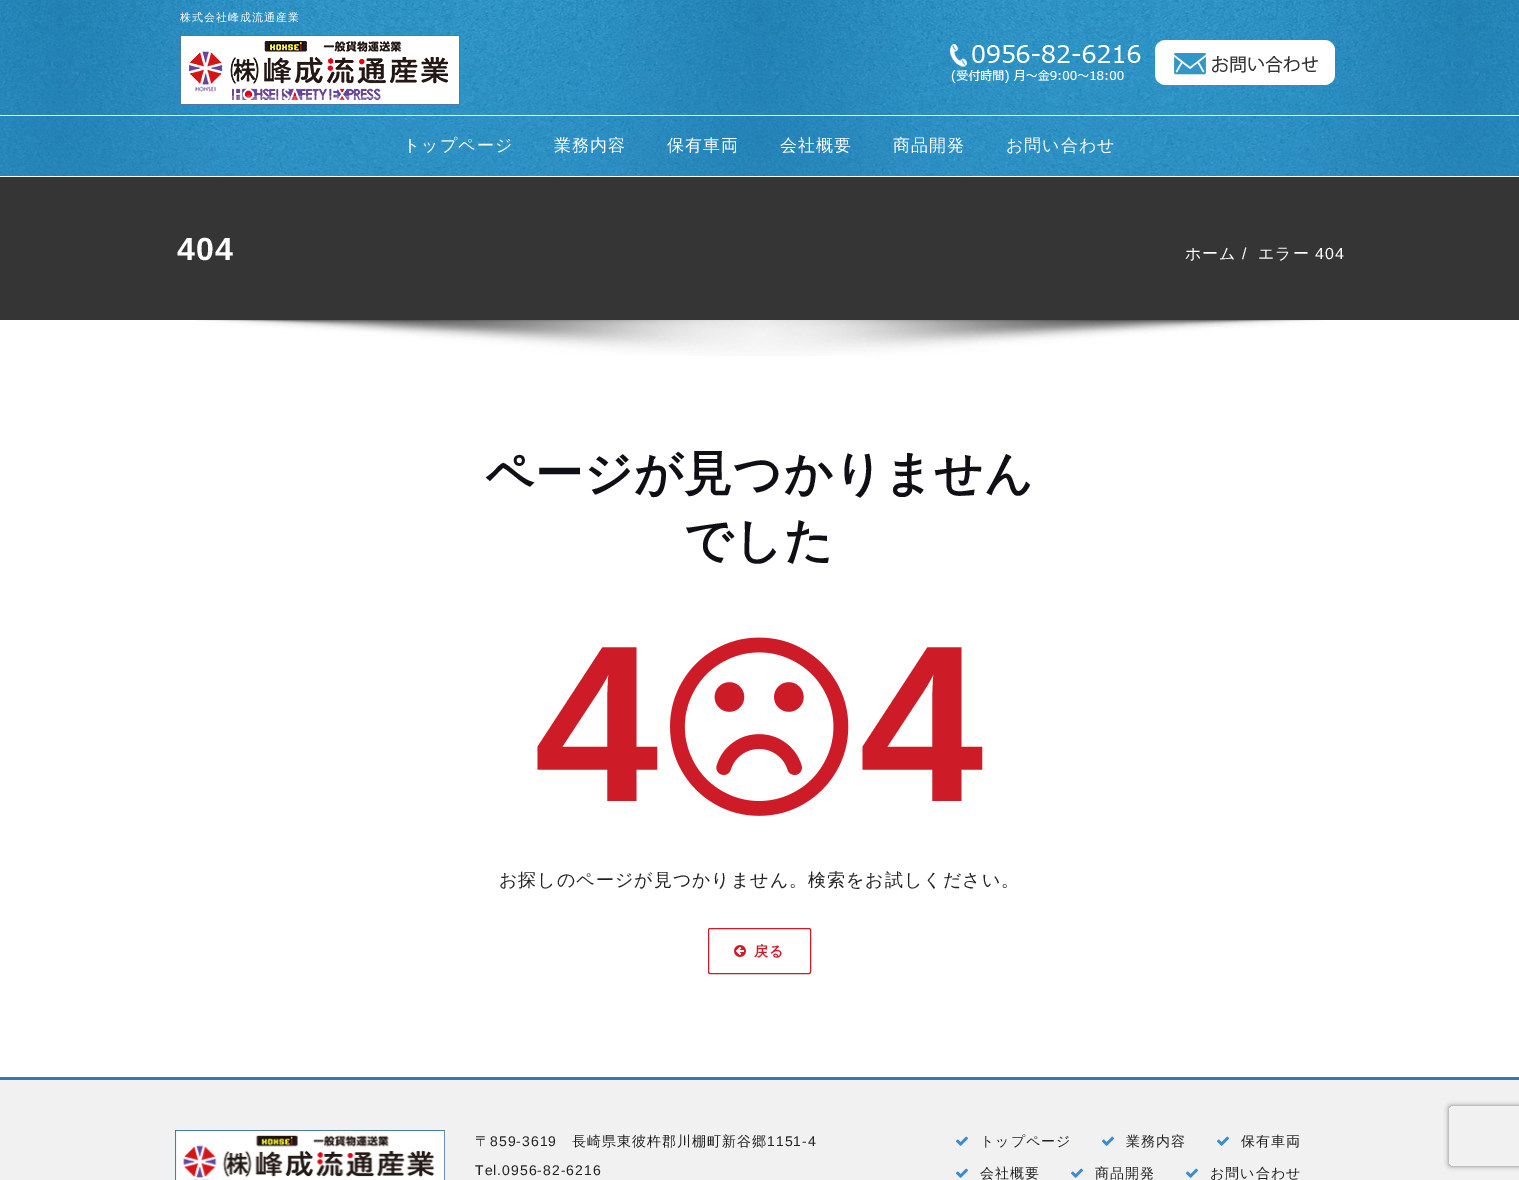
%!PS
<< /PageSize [1519 1180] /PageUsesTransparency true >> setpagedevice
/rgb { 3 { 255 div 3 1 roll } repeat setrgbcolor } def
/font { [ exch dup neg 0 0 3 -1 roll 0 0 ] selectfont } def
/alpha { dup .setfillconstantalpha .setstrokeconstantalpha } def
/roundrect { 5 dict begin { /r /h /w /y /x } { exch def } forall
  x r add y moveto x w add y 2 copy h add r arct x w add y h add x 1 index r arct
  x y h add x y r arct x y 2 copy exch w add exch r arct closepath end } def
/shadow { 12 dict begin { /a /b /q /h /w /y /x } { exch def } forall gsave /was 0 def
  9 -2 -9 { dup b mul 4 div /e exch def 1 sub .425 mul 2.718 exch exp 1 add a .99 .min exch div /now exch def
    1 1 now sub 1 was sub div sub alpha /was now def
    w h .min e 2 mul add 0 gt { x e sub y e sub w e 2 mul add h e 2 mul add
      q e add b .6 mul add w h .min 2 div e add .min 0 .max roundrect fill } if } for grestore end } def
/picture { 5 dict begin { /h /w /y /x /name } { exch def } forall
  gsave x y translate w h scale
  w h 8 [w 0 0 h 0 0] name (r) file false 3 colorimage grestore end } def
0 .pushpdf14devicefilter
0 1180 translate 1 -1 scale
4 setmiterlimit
255 255 255 rgb
0 0 1519 1180 rectfill
(img_01.rgb) 0 0 1519 176 picture
(img_02.rgb) 180 35 280 70 picture
(img_03.rgb) 950 44 191 39 picture
(img_04.rgb) 1155 40 180 45 picture
0 115 1519 1 rectfill
53 53 53 rgb
0 177 1519 143 rectfill
(img_05.rgb) 196 320 1127 36 picture
(img_06.rgb) 670 637 179 179 picture
206 27 40 rgb
708.5 928.5 102 45 1.5 roundrect stroke
(img_07.rgb) 734 945 12 12 picture
241 241 241 rgb
0 1080 1519 100 rectfill
49 119 185 rgb
0 1077 1519 3 rectfill
(img_08.rgb) 175 1130 270 50 picture
(img_09.rgb) 956 1136 12 10 picture
(img_09.rgb) 1102 1136 12 10 picture
(img_09.rgb) 1217 1136 12 10 picture
(img_09.rgb) 956 1168 12 10 picture
(img_09.rgb) 1071 1168 12 10 picture
(img_09.rgb) 1186 1168 12 10 picture
gsave
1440 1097 moveto 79 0 rlineto 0 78 rlineto -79 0 rlineto closepath 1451 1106 moveto 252 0 rlineto 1 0 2 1 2 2 rcurveto 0 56 rlineto 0 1 -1 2 -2 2 rcurveto -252 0 rlineto -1 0 -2 -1 -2 -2 rcurveto 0 -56 rlineto 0 -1 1 -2 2 -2 rcurveto closepath eoclip newpath
128 128 128 rgb
1449 1106 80 60 2 2.5 1 shadow
grestore
/WenQuanYiZenHei-Medium 11 font
255 255 255 rgb
180 21 moveto 1 0 (株式会社峰成流通産業) ashow
/WenQuanYiZenHei-Medium 17 font
403 151 moveto 1 0 (トップページ) ashow
554 151 moveto 1 0 (業務内容) ashow
667 151 moveto 1 0 (保有車両) ashow
780 151 moveto 1 0 (会社概要) ashow
893 151 moveto 1 0 (商品開発) ashow
1006 151 moveto 1 0 (お問い合わせ) ashow
/LiberationSans-Bold 32 font
177 260 moveto 1 0 (404) ashow
/WenQuanYiZenHei-Medium 16 font
1185 259 moveto 1 0 (ホーム) ashow
/LiberationSans-Regular 16 font
1242 259 moveto 1 0 (/) ashow
/WenQuanYiZenHei-Medium 16 font
1258 259 moveto 1 0 (エラー) ashow
/LiberationSans-Regular 16 font
1315 259 moveto 1 0 (404) ashow
/WenQuanYiZenHei-Bold 48 font
15 15 22 rgb
485 490 moveto 1 0 (ページが見つかりません) ashow
684 557 moveto 1 0 (でした) ashow
/LiberationSans-Bold 224 font
206 27 40 rgb
534 801 moveto 1 0 (4) ashow
859 801 moveto 1 0 (4) ashow
/WenQuanYiZenHei-Medium 18 font
34 34 34 rgb
499 886 moveto 1 0 (お探しのページが見つかりません。検索をお試しください。) ashow
/WenQuanYiZenHei-Bold 14 font
206 27 40 rgb
754 956 moveto 1 0 (戻る) ashow
/WenQuanYiZenHei-Medium 14 font
34 34 34 rgb
475 1146 moveto 1 0 (〒) ashow
/LiberationSans-Regular 14 font
490 1146 moveto 1 0 (859-3619) ashow
/WenQuanYiZenHei-Medium 14 font
572 1146 moveto 1 0 (長崎県東彼杵郡川棚町新谷郷) ashow
/LiberationSans-Regular 14 font
767 1146 moveto 1 0 (1151-4) ashow
475 1175 moveto 1 0 (Tel.0956-82-6216) ashow
/WenQuanYiZenHei-Medium 14 font
980 1146 moveto 1 0 (トップページ) ashow
1126 1146 moveto 1 0 (業務内容) ashow
1241 1146 moveto 1 0 (保有車両) ashow
980 1178 moveto 1 0 (会社概要) ashow
1095 1178 moveto 1 0 (商品開発) ashow
1210 1178 moveto 1 0 (お問い合わせ) ashow
.poppdf14devicefilter showpage
